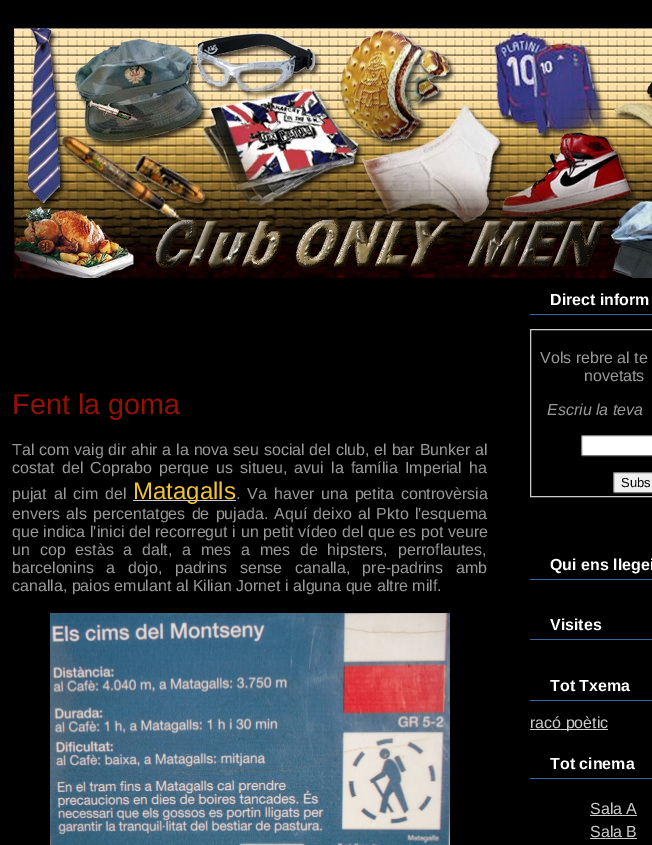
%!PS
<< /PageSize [652 845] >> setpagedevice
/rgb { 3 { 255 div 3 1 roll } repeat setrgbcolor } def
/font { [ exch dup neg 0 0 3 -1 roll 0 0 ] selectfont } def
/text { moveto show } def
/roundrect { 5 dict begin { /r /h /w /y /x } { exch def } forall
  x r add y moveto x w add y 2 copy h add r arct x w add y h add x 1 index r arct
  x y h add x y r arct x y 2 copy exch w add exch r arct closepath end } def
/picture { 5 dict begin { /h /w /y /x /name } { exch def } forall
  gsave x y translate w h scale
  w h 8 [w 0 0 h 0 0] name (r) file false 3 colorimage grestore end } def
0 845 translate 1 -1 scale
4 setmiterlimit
0 0 0 rgb
0 0 652 845 rectfill
(img_01.rgb) 0 16 652 262 picture
204 204 204 rgb
133 500 103 1 rectfill
(img_02.rgb) 50 613 400 232 picture
51 102 153 rgb
530 314 122 1 rectfill
204 204 204 rgb
530.5 329.5 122 167 rectstroke
255 255 255 rgb
581.5 435.5 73 20 1.5 roundrect gsave fill grestore
118 118 118 rgb
stroke
239 239 239 rgb
613.5 472.5 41 20 1.5 roundrect gsave fill grestore
118 118 118 rgb
stroke
51 102 153 rgb
530 579 122 1 rectfill
530 639 122 1 rectfill
530 700 122 1 rectfill
204 204 204 rgb
530 729 78 1 rectfill
51 102 153 rgb
530 778 122 1 rectfill
204 204 204 rgb
590 815 47 1 rectfill
590 838 47 1 rectfill
/LiberationSans-Regular 28.75 font
148 15 4 rgb
(Fent la goma) 12 414 text
/LiberationSans-Regular 16 font
153 153 153 rgb
12 455 moveto 0.4 0 32 (Tal com vaig dir ahir a la nova seu social del club, el bar Bunker al) widthshow
12 473 moveto 2.75 0 32 (costat del Coprabo perque us situeu, avui la família Imperial ha) widthshow
12 499 moveto 2.5 0 32 (pujat al cim del) widthshow
/LiberationSans-Regular 24 font
241 194 50 rgb
(Matagalls) 133 499 text
/LiberationSans-Regular 16 font
153 153 153 rgb
236 499 moveto 2.5 0 32 (. Va haver una petita controvèrsia) widthshow
12 519 moveto 1.75 0 32 (envers als percentatges de pujada. Aquí deixo al Pkto l'esquema) widthshow
12 537 moveto 0.25 0 32 (que indica l'inici del recorregut i un petit vídeo del que es pot veure) widthshow
12 555 moveto 5.4 0 32 (un cop estàs a dalt, a mes a mes de hipsters, perroflautes,) widthshow
12 573 moveto 8 0 32 (barcelonins a dojo, padrins sense canalla, pre-padrins amb) widthshow
(canalla, paios emulant al Kilian Jornet i alguna que altre milf.) 12 591 text
/LiberationSans-Bold 16 font
255 255 255 rgb
(Direct inform) 550 305 text
/LiberationSans-Regular 16 font
153 153 153 rgb
(Vols rebre al te) 540 363 text
(novetats) 584 381 text
/LiberationSans-Italic 16 font
(Escriu la teva) 547 415 text
/LiberationSans-Regular 13 font
0 0 0 rgb
(Subs) 621 487 text
/LiberationSans-Bold 16 font
255 255 255 rgb
(Qui ens llegei) 550 570 text
(Visites) 550 630 text
(Tot Txema) 550 691 text
/LiberationSans-Regular 16 font
204 204 204 rgb
(racó poètic) 530 728 text
/LiberationSans-Bold 16 font
255 255 255 rgb
(Tot cinema) 550 769 text
/LiberationSans-Regular 16 font
204 204 204 rgb
(Sala A) 590 814 text
(Sala B) 590 837 text
showpage
